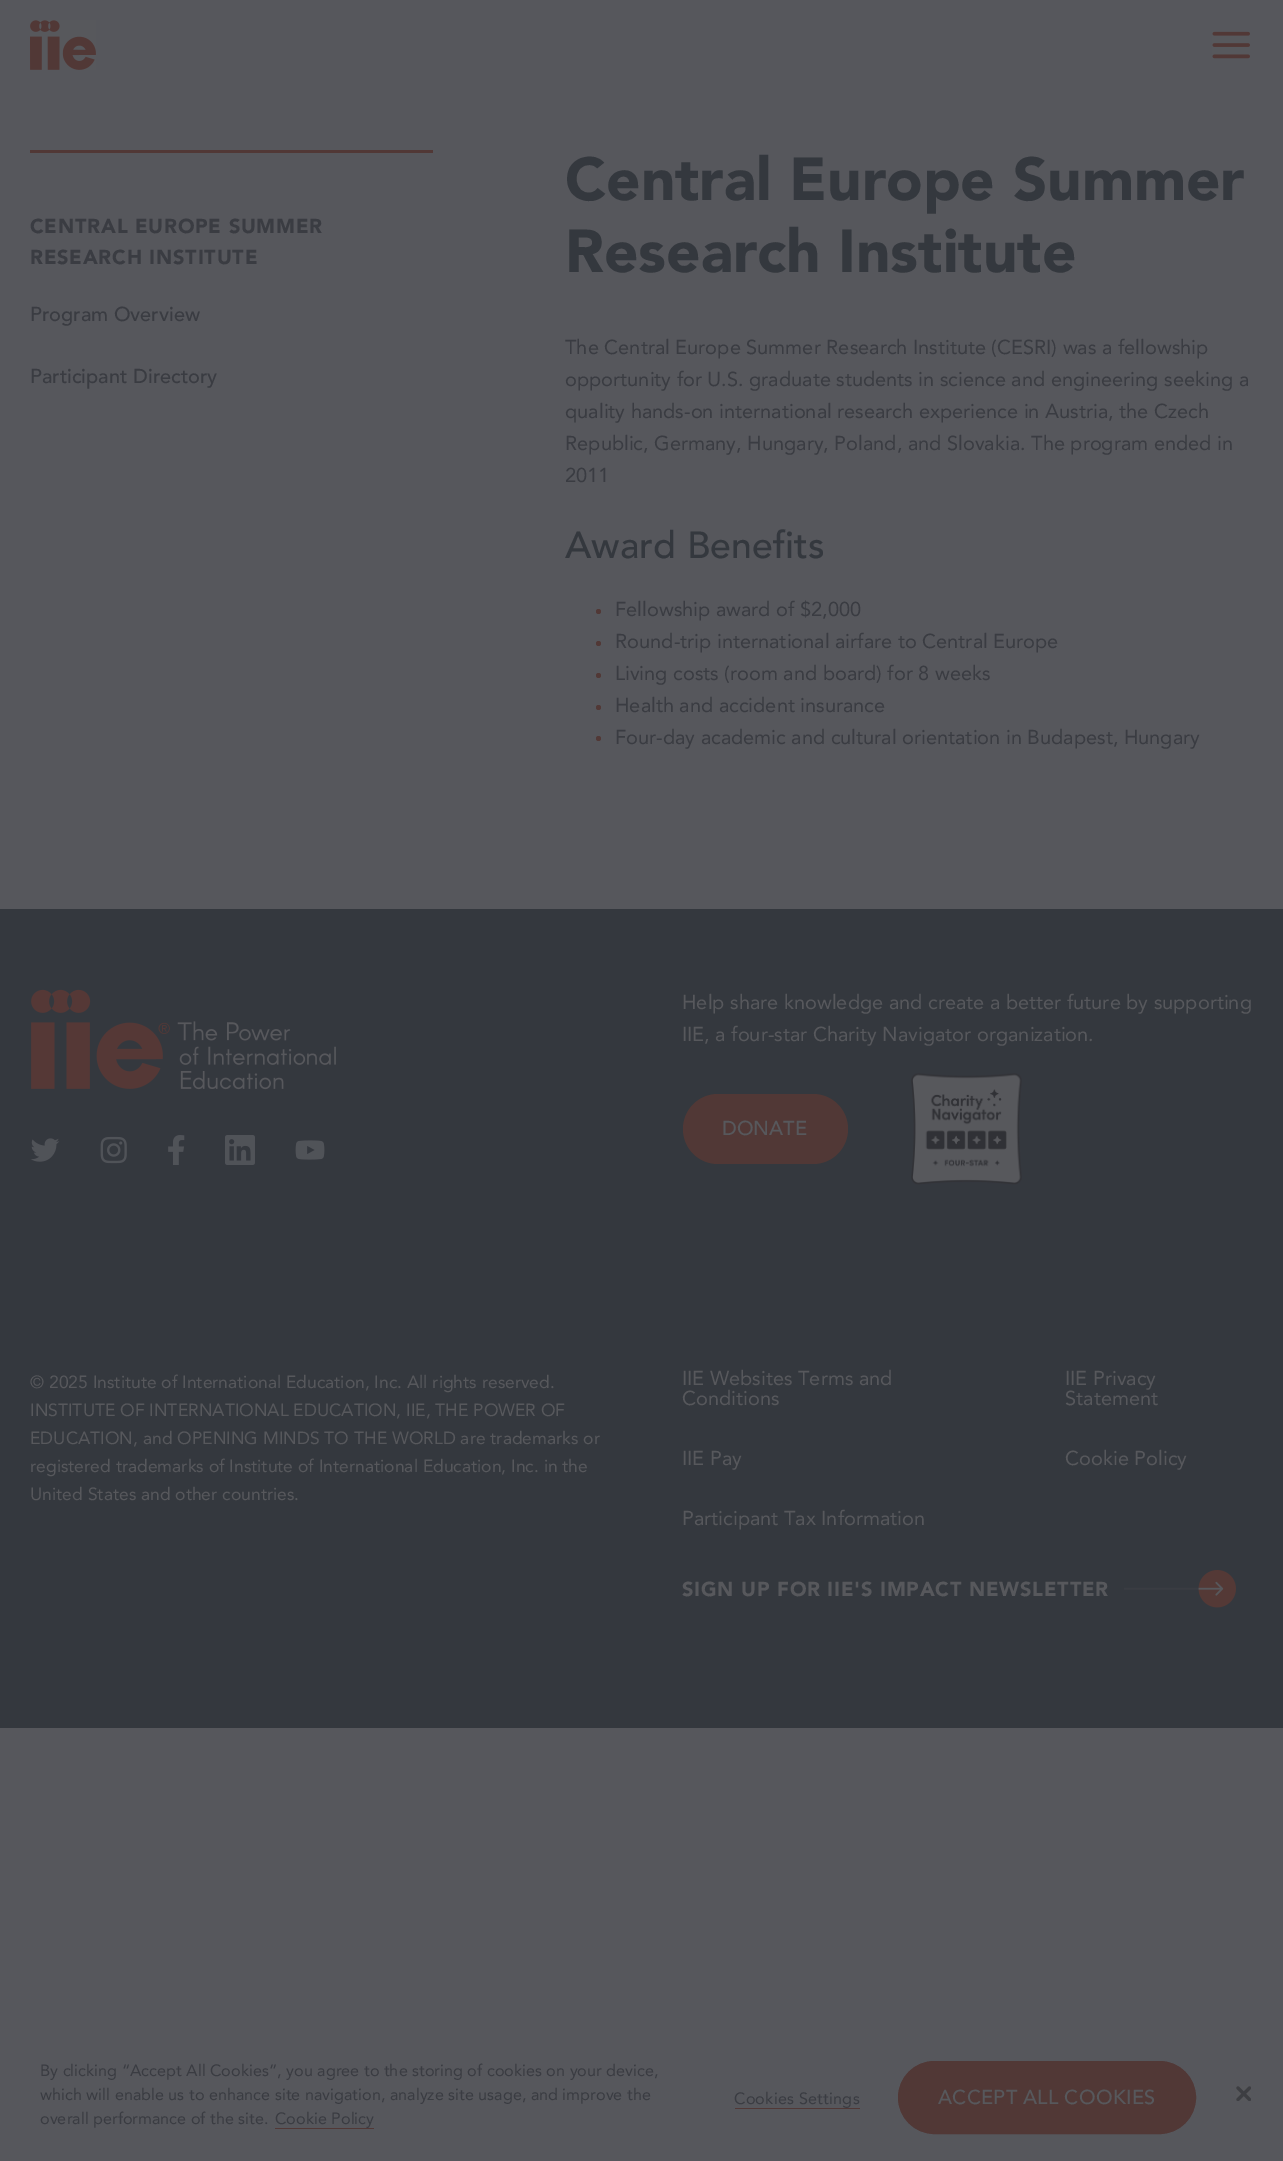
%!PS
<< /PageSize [1283 2161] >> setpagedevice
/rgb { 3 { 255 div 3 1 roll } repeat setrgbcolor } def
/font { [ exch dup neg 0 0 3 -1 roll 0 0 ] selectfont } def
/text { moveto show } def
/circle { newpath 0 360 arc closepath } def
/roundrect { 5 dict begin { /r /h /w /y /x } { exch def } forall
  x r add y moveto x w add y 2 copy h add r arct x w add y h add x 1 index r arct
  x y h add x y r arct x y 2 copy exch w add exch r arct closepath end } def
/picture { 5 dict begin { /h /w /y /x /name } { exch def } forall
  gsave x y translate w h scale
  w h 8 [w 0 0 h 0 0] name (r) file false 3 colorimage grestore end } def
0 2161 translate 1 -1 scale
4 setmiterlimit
86 87 92 rgb
0 0 1283 2161 rectfill
(img_01.rgb) 30 20 66 50 picture
(img_02.rgb) 1212 31 38 28 picture
81 56 54 rgb
30 150 403 3 rectfill
598.5 611.5 2.5 circle fill
598.5 643.5 2.5 circle fill
598.5 675.5 2.5 circle fill
598.5 707.5 2.5 circle fill
598.5 738.5 2.5 circle fill
52 56 62 rgb
0 909 1283 819 rectfill
(img_03.rgb) 31 989 305 101 picture
(img_04.rgb) 30 1138 30 24 picture
(img_05.rgb) 100 1136 27 28 picture
(img_06.rgb) 168 1135 17 30 picture
(img_07.rgb) 225 1135 30 30 picture
(img_08.rgb) 295 1140 30 20 picture
81 56 54 rgb
683 1094 165 70 35 roundrect fill
(img_09.rgb) 911 1073 111 112 picture
(img_10.rgb) 1124 1570 112 38 picture
275 2128 99 1 rectfill
735 2108 125 1 rectfill
898.5 2061.5 297 72 36 roundrect gsave fill grestore
stroke
(img_11.rgb) 1236 2086 15 15 picture
/Avenir-Black 20 font
58 60 66 rgb
30 233 moveto 0.8 0 (CENTRAL EUROPE SUMMER) ashow
30 264 moveto 0.8 0 (RESEARCH INSTITUTE) ashow
/Avenir-Medium 20 font
(Program Overview) 30 321 text
(Participant Directory) 30 383 text
/Avenir-Black 60 font
52 56 62 rgb
(Central Europe Summer) 565 200 text
(Research Institute) 565 272 text
/Avenir-Regular 20 font
58 60 66 rgb
(The Central Europe Summer Research Institute \(CESRI\) was a fellowship) 565 354 text
(opportunity for U.S. graduate students in science and engineering seeking a) 565 386 text
(quality hands-on international research experience in Austria, the Czech) 565 418 text
(Republic, Germany, Hungary, Poland, and Slovakia. The program ended in) 565 450 text
(2011) 565 482 text
/Avenir-Medium 37.5 font
52 56 62 rgb
(Award Benefits) 565 558 text
/Avenir-Regular 20 font
58 60 66 rgb
(Fellowship award of $2,000) 615 616 text
(Round-trip international airfare to Central Europe) 615 648 text
(Living costs \(room and board\) for 8 weeks) 615 680 text
(Health and accident insurance) 615 712 text
(Four-day academic and cultural orientation in Budapest, Hungary) 615 744 text
87 88 92 rgb
(Help share knowledge and create a better future by supporting) 682 1009 text
(IIE, a four-star Charity Navigator organization.) 682 1041 text
/Avenir-Medium 20 font
(DONATE) 722 1135 text
/Avenir-Regular 17.5 font
(© 2025 Institute of International Education, Inc. All rights reserved.) 30 1388 text
(INSTITUTE OF INTERNATIONAL EDUCATION, IIE, THE POWER OF) 30 1416 text
(EDUCATION, and OPENING MINDS TO THE WORLD are trademarks or) 30 1444 text
(registered trademarks of Institute of International Education, Inc. in the) 30 1472 text
(United States and other countries.) 30 1500 text
/Avenir-Regular 20 font
(IIE Websites Terms and) 682 1385 text
(Conditions) 682 1405 text
(IIE Pay) 682 1465 text
(Participant Tax Information) 682 1525 text
(IIE Privacy) 1065 1385 text
(Statement) 1065 1405 text
(Cookie Policy) 1065 1465 text
/Avenir-Black 20 font
682 1596 moveto 0.8 0 (SIGN UP FOR IIE'S IMPACT NEWSLETTER) ashow
/Avenir-Regular 16.25 font
58 60 66 rgb
(By clicking “Accept All Cookies”, you agree to the storing of cookies on your device,) 40 2076 text
(which will enable us to enhance site navigation, analyze site usage, and improve the) 40 2100 text
(overall performance of the site.) 40 2124 text
(Cookie Policy) 275 2124 text
734 2104 moveto 0.2 0 (Cookies Settings) ashow
/Avenir-Medium 20 font
87 88 92 rgb
938 2104 moveto 0.25 0 (ACCEPT ALL COOKIES) ashow
showpage
